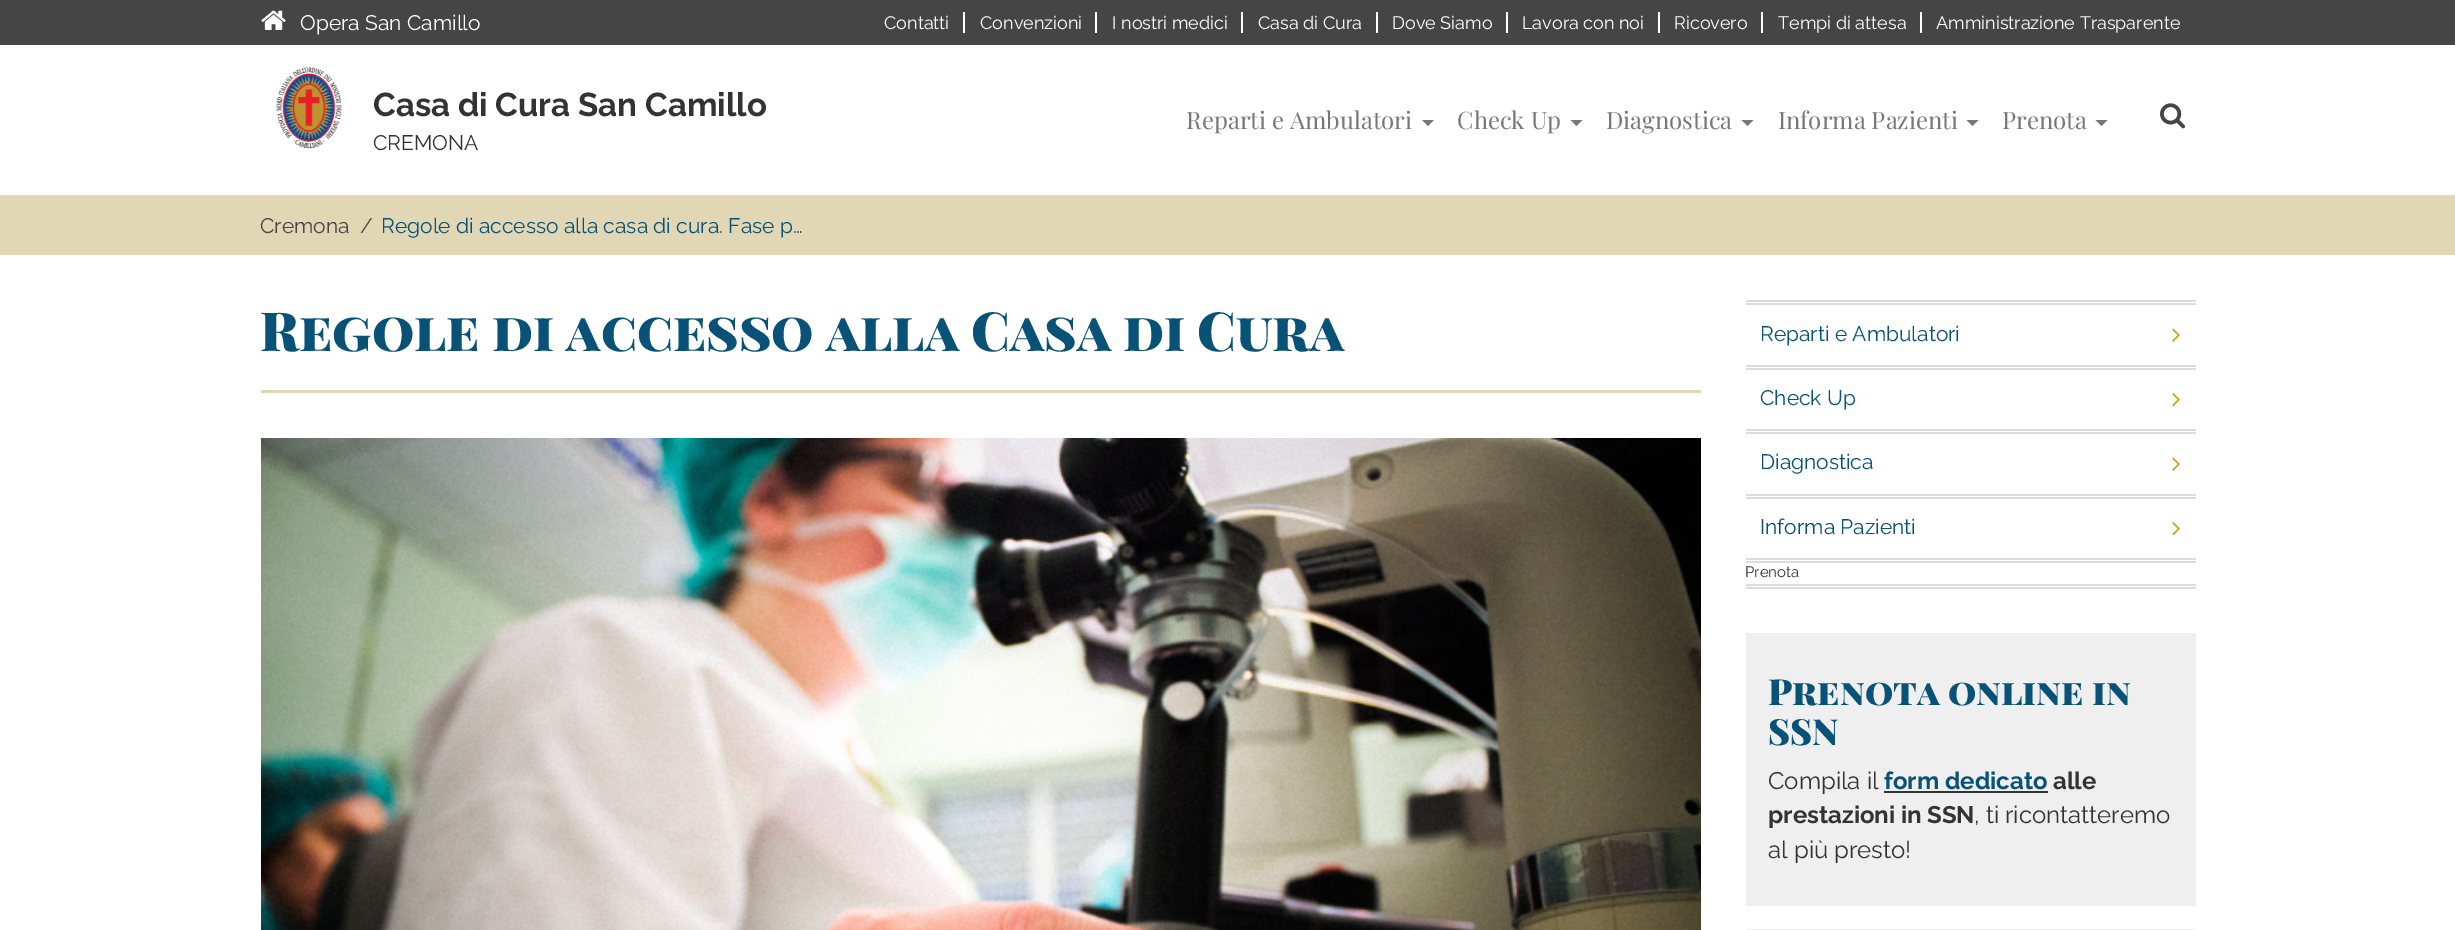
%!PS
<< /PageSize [2455 930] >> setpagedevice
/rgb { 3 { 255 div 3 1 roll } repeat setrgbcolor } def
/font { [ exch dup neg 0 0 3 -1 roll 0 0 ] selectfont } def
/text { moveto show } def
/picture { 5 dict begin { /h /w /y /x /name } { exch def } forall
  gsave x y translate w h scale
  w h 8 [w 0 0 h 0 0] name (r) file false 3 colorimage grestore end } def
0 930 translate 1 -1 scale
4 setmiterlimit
255 255 255 rgb
0 0 2455 930 rectfill
69 69 69 rgb
0 0 2455 45 rectfill
(img_01.rgb) 261 10 25 20 picture
255 255 255 rgb
963 12 2 21 rectfill
1095 12 2 21 rectfill
1241 12 2 21 rectfill
1376 12 2 21 rectfill
1506 12 2 21 rectfill
1658 12 2 21 rectfill
1761 12 2 21 rectfill
1920 12 2 21 rectfill
(img_02.rgb) 276 67 66 82 picture
119 119 119 rgb
1422 120 moveto 12 0 rlineto -6 6 rlineto closepath fill
1570.5 120 moveto 12 0 rlineto -6 6 rlineto closepath fill
1741.5 120 moveto 12 0 rlineto -6 6 rlineto closepath fill
1966.5 120 moveto 12 0 rlineto -6 6 rlineto closepath fill
2095.5 120 moveto 12 0 rlineto -6 6 rlineto closepath fill
(img_03.rgb) 2160 103 26 26 picture
225 215 180 rgb
0 195 2455 60 rectfill
261 390 1440 3 rectfill
(img_04.rgb) 261 438 1440 492 picture
220 220 220 rgb
1746 300 450 2 rectfill
1746 303 450 2 rectfill
(img_05.rgb) 2172 328 8 14 picture
1746 365 450 2 rectfill
1746 368 450 2 rectfill
(img_06.rgb) 2172 393 8 14 picture
1746 429 450 2 rectfill
1746 432 450 2 rectfill
(img_05.rgb) 2172 457 8 14 picture
1746 494 450 2 rectfill
1746 497 450 2 rectfill
(img_06.rgb) 2172 522 8 14 picture
1746 558 450 2 rectfill
1746 561 450 2 rectfill
1746 584 450 2 rectfill
1746 587 450 2 rectfill
239 239 239 rgb
1746 633 450 273 rectfill
51 51 51 rgb
1884 791 164 2 rectfill
239 239 239 rgb
1746 929 450 1 rectfill
/Raleway-Regular 21 font
255 255 255 rgb
(Opera San Camillo) 300 30 text
/Raleway-Regular 18 font
(Contatti) 884 29 text
(Convenzioni) 980 29 text
(I nostri medici) 1112 29 text
(Casa di Cura) 1258 29 text
(Dove Siamo) 1392 29 text
(Lavora con noi) 1522 29 text
(Ricovero) 1674 29 text
(Tempi di attesa) 1778 29 text
(Amministrazione Trasparente) 1936 29 text
/Raleway-Bold 33 font
51 51 51 rgb
(Casa di Cura San Camillo) 373 116 text
/Raleway-Regular 21 font
(CREMONA) 373 150 text
/PlayfairDisplay-Regular 24 font
119 119 119 rgb
(Reparti e Ambulatori) 1186 129 text
(Check Up) 1457 129 text
(Diagnostica) 1606 129 text
(Informa Pazienti) 1778 129 text
(Prenota) 2002 129 text
/Raleway-Regular 21 font
69 69 69 rgb
(Cremona) 260 233 text
(/) 360 233 text
8 81 119 rgb
(Regole di accesso alla casa di cura. Fase p…) 381 233 text
/PlayfairDisplaySC-Black 54 font
(Regole di accesso alla Casa di Cura) 260 351 text
/Raleway-Regular 21 font
(Reparti e Ambulatori) 1760 341 text
(Check Up) 1760 405 text
(Diagnostica) 1760 469 text
(Informa Pazienti) 1760 534 text
/Raleway-Regular 15 font
51 51 51 rgb
(Prenota) 1745 577 text
/PlayfairDisplaySC-Black 36 font
8 81 119 rgb
(Prenota online in) 1768 705 text
(SSN) 1768 745 text
/Raleway-Regular 24 font
51 51 51 rgb
(Compila il) 1768 789 text
/Raleway-Bold 24 font
8 81 119 rgb
(form dedicato) 1884 789 text
51 51 51 rgb
(alle) 2053 789 text
(prestazioni in SSN) 1768 823 text
/Raleway-Regular 24 font
(, ti ricontatteremo) 1974 823 text
(al più presto!) 1768 858 text
showpage
